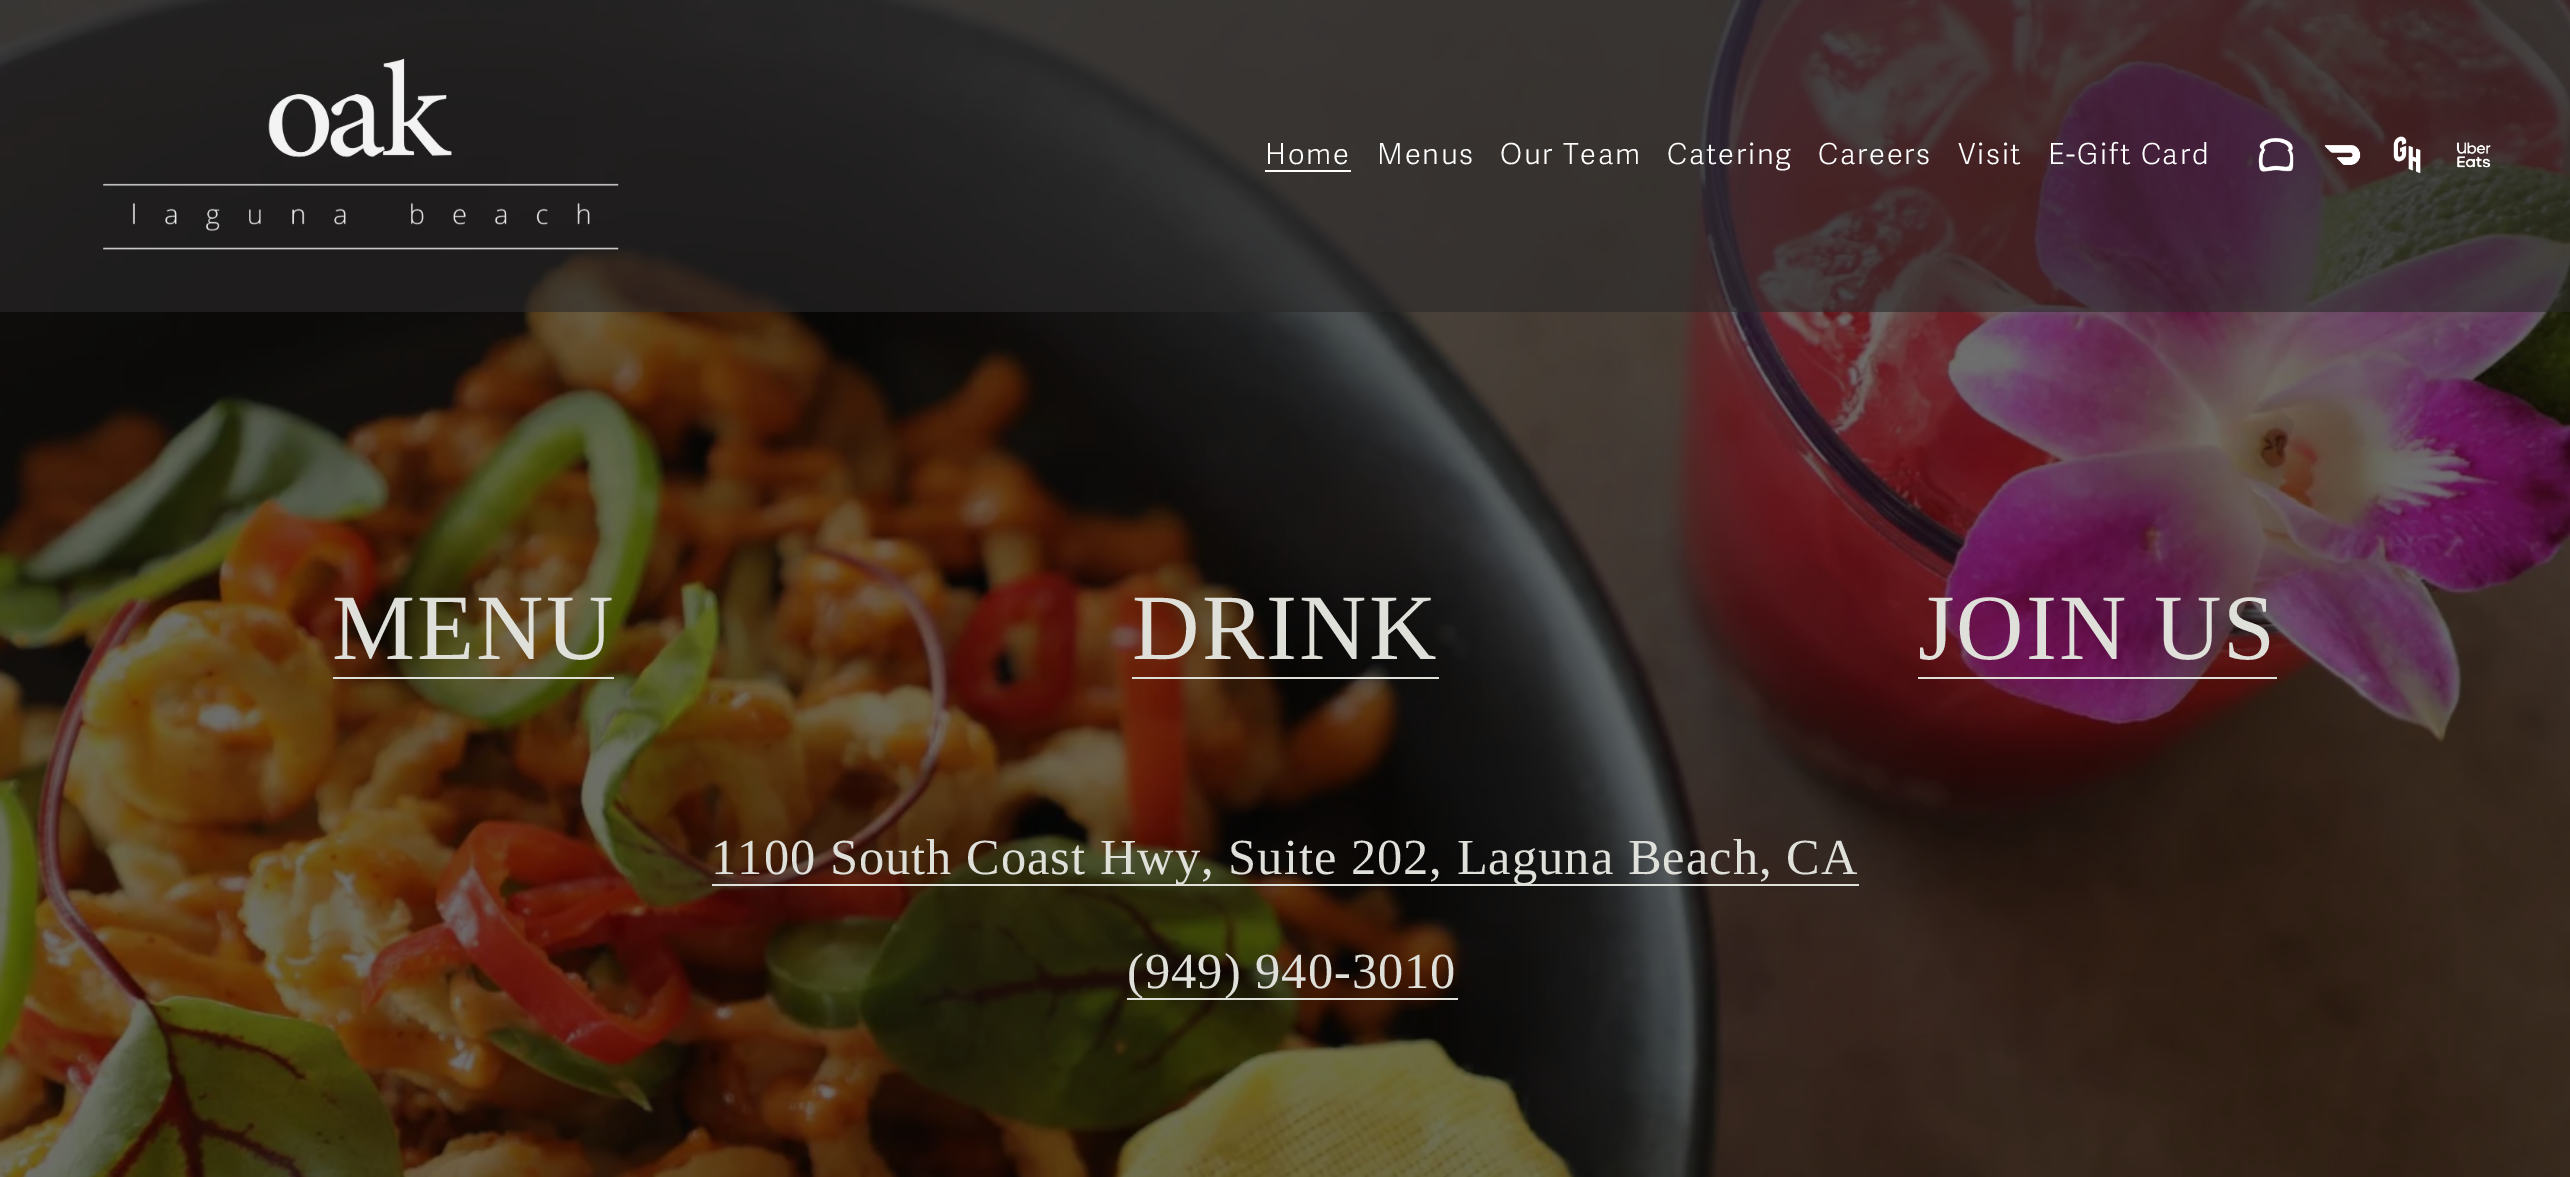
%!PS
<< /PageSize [2570 1177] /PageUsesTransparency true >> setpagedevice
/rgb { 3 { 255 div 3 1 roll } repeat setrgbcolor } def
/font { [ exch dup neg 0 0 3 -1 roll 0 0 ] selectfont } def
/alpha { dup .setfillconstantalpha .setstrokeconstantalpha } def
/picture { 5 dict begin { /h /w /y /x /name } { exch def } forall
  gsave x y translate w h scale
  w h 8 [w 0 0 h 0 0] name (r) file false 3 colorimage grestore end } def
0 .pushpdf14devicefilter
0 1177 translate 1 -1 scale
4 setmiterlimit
255 255 255 rgb
0 0 2570 1177 rectfill
(img_06.rgb) 0 0 2570 1177 picture
0.6 alpha
42 40 41 rgb
0 0 2570 312 rectfill
1 alpha
(img_01.rgb) 103 58 516 192 picture
255 255 255 rgb
1265 170 86 2 rectfill
(img_02.rgb) 2258 138 36 34 picture
(img_03.rgb) 2324 145 37 20 picture
(img_04.rgb) 2393 136 28 38 picture
(img_05.rgb) 2456 142 35 26 picture
224 224 219 rgb
333 677 281 2 rectfill
1132 677 307 2 rectfill
1918 677 359 2 rectfill
712 884 1147 2 rectfill
1127 998 331 2 rectfill
/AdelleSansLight-Light 29 font
255 255 255 rgb
1265 164 moveto 1.75 0 (Home) ashow
1377 164 moveto 1.75 0 (Menus) ashow
1500 164 moveto 1.75 0 (Our Team) ashow
1667 164 moveto 1.75 0 (Catering) ashow
1818 164 moveto 1.75 0 (Careers) ashow
1958 164 moveto 1.75 0 (Visit) ashow
2048 164 moveto 1.75 0 (E-Gift Card) ashow
/LiberationSerif-Regular 93.5 font
224 224 219 rgb
332 659 moveto 2 0 (MENU) ashow
1132 659 moveto 2 0 (DRINK) ashow
1918 659 moveto 2 0 (JOIN US) ashow
/LiberationSerif-Regular 50.5 font
711 874 moveto 1 0 (1100 South Coast Hwy, Suite 202, Laguna Beach, CA) ashow
1127 988 moveto 1 0 (\(949\) 940-3010) ashow
.poppdf14devicefilter showpage
